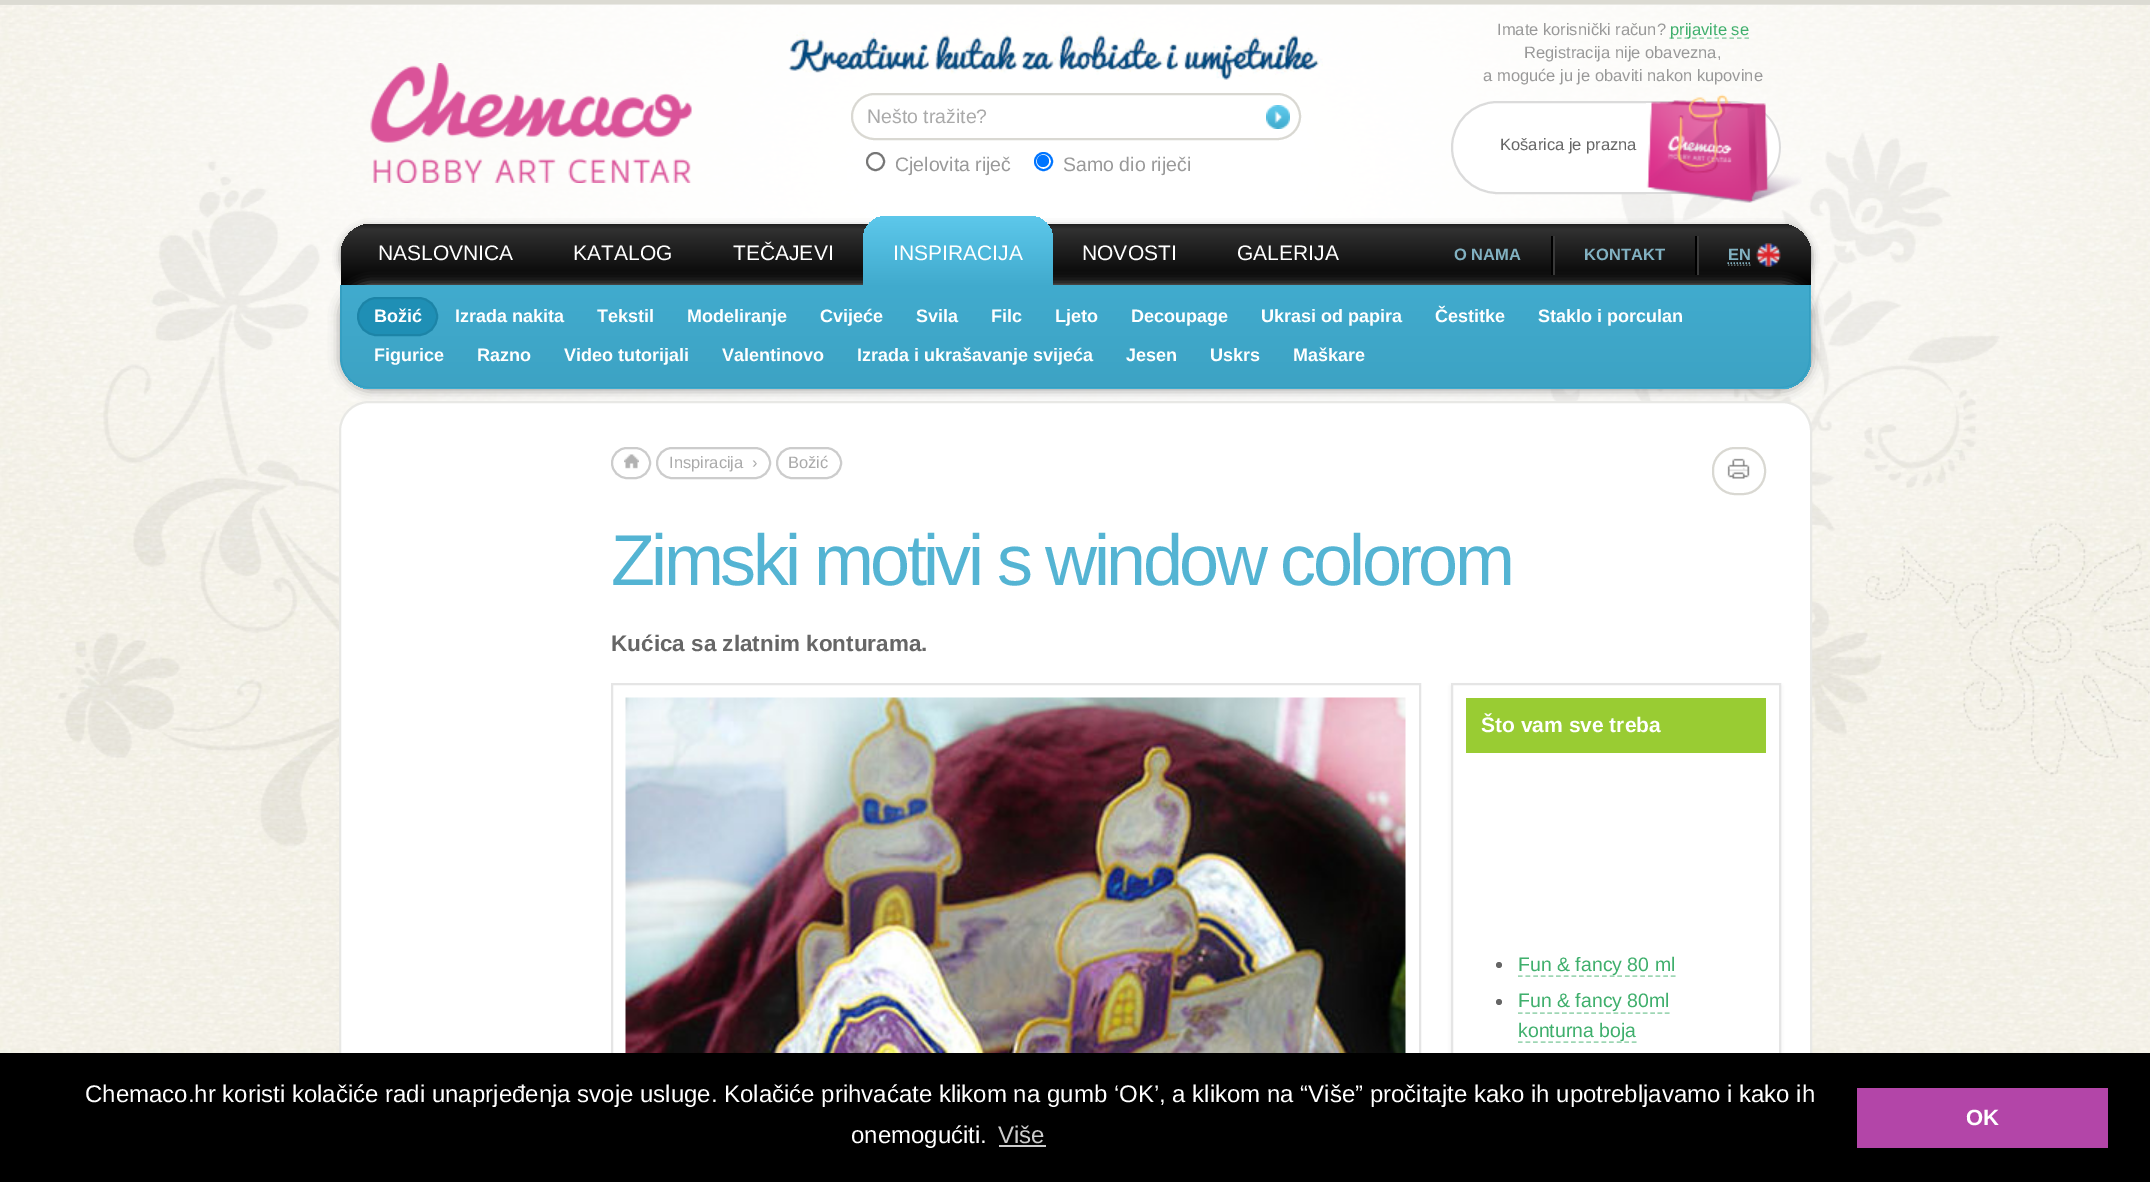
%!PS
<< /PageSize [2150 1182] /PageUsesTransparency true >> setpagedevice
/rgb { 3 { 255 div 3 1 roll } repeat setrgbcolor } def
/font { [ exch dup neg 0 0 3 -1 roll 0 0 ] selectfont } def
/text { moveto show } def
/alpha { dup .setfillconstantalpha .setstrokeconstantalpha } def
/circle { newpath 0 360 arc closepath } def
/roundrect { 5 dict begin { /r /h /w /y /x } { exch def } forall
  x r add y moveto x w add y 2 copy h add r arct x w add y h add x 1 index r arct
  x y h add x y r arct x y 2 copy exch w add exch r arct closepath end } def
/shadow { 12 dict begin { /a /b /q /h /w /y /x } { exch def } forall gsave /was 0 def
  9 -2 -9 { dup b mul 4 div /e exch def 1 sub .425 mul 2.718 exch exp 1 add a .99 .min exch div /now exch def
    1 1 now sub 1 was sub div sub alpha /was now def
    w h .min e 2 mul add 0 gt { x e sub y e sub w e 2 mul add h e 2 mul add
      q e add b .6 mul add w h .min 2 div e add .min 0 .max roundrect fill } if } for grestore end } def
/picture { 5 dict begin { /h /w /y /x /name } { exch def } forall
  gsave x y translate w h scale
  w h 8 [w 0 0 h 0 0] name (r) file false 3 colorimage grestore end } def
0 .pushpdf14devicefilter
0 1182 translate 1 -1 scale
4 setmiterlimit
255 255 255 rgb
0 0 2150 1182 rectfill
(img_01.rgb) 0 5 2150 1048 picture
220 219 211 rgb
0 0 2150 5 rectfill
(img_02.rgb) 0 4 2150 842 picture
(img_03.rgb) 788 31 535 49 picture
158 214 180 rgb
1.5 setlinewidth
[4.5 3] 0 setdash
1669.5 38 moveto 79.5 0 rlineto stroke
(img_04.rgb) 370 63 322 120 picture
217 216 210 rgb
2 setlinewidth
[] 0 setdash
852 94 448 45 22.5 roundrect stroke
(img_05.rgb) 1266 105 24 24 picture
118 118 118 rgb
875.5 161.5 8.5 circle stroke
0 117 255 rgb
1043.5 161.5 8.5 circle stroke
1043 161 6 circle fill
255 255 255 rgb
1452 102 328 91 45.5 roundrect gsave fill grestore
219 219 219 rgb
stroke
(img_06.rgb) 1646 94 156 109 picture
136 136 136 rgb
341 227 1470 61 30 4 1 shadow
gsave 371 224 moveto 1410 0 rlineto 16.5 0 30 13.5 30 30 rcurveto 0 31 rlineto -1470 0 rlineto 0 -31 rlineto 0 -16.5 13.5 -30 30 -30 rcurveto closepath clip newpath
<< /ShadingType 2 /ColorSpace /DeviceRGB /Coords [1076 223 1076 285] /Extend [true true] /Function << /FunctionType 3 /Domain [0 1] /Functions [<< /FunctionType 2 /Domain [0 1] /C0 [0.102 0.102 0.102] /C1 [0.192 0.192 0.192] /N 1 >> << /FunctionType 2 /Domain [0 1] /C0 [0.192 0.192 0.192] /C1 [0.004 0.004 0.004] /N 1 >>] /Bounds [0.1] /Encode [0 1 0 1] >> >> shfill grestore
341 285 1470 104 30 6 1 shadow
gsave 886 216 moveto 144 0 rlineto 12.5 0 23 10.5 23 23 rcurveto 0 46 rlineto -190 0 rlineto 0 -46 rlineto 0 -12.5 10.5 -23 23 -23 rcurveto closepath clip newpath
<< /ShadingType 2 /ColorSpace /DeviceRGB /Coords [958 216 958 285] /Extend [true true] /Function << /FunctionType 2 /Domain [0 1] /C0 [0.365 0.784 0.922] /C1 [0.255 0.671 0.808] /N 1 >> >> shfill grestore
0 0 0 rgb
1551 236 2 39 rectfill
1695 236 2 39 rectfill
57 57 57 rgb
1553 236 2 39 rectfill
(img_07.rgb) 1756 243 25 24 picture
1697 236 2 39 rectfill
90 103 104 rgb
1.5 setlinewidth
[1.5 1.5] 0 setdash
1728 265 moveto 22.5 0 rlineto stroke
129 177 193 rgb
1727.5 263 moveto 23 0 rlineto stroke
gsave
341 285 moveto 1470 0 rlineto 0 74 rlineto 0 16.5 -13.5 30 -30 30 rcurveto -1410 0 rlineto -16.5 0 -30 -13.5 -30 -30 rcurveto closepath clip newpath
gsave 341 285 moveto 1470 0 rlineto 0 102 rlineto -1470 0 rlineto closepath clip newpath
<< /ShadingType 2 /ColorSpace /DeviceRGB /Coords [1076 285 1076 387] /Extend [true true] /Function << /FunctionType 2 /Domain [0 1] /C0 [0.255 0.671 0.808] /C1 [0.239 0.639 0.769] /N 1 >> >> shfill grestore
gsave 360 387 moveto 1432 0 rlineto 0 2 rlineto -1432 0 rlineto closepath clip newpath
<< /ShadingType 2 /ColorSpace /DeviceRGB /Coords [1076 387 1076 489] /Extend [true true] /Function << /FunctionType 2 /Domain [0 1] /C0 [0.255 0.671 0.808] /C1 [0.239 0.639 0.769] /N 1 >> >> shfill grestore
grestore
52 159 194 rgb
340 285 moveto 1470 0 rlineto 0 73 rlineto 0 17 -13 30 -30 30 rcurveto -1410 0 rlineto -16 0 -30 -13 -30 -30 rcurveto closepath 342 285 moveto 1467 0 rlineto 0 73 rlineto 0 16 -13 29 -29 29 rcurveto -1410 0 rlineto -15 0 -28 -13 -28 -29 rcurveto closepath eofill
31 143 181 rgb
358 298 79 37 18.5 roundrect gsave fill grestore
28 132 167 rgb
2 setlinewidth
[] 0 setdash
stroke
255 255 255 rgb
340 402 1471 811 29 roundrect gsave fill grestore
232 232 229 rgb
stroke
204 204 204 rgb
612 448 38 30 15 roundrect stroke
(img_08.rgb) 624 454 15 15 picture
657 448 113 30 15 roundrect stroke
777 448 64 30 15 roundrect stroke
217 216 210 rgb
1713 448 52 46 22 roundrect stroke
(img_09.rgb) 1727 458 23 21 picture
229 229 229 rgb
612 684 808 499 rectstroke
(img_10.rgb) 625 697 781 356 picture
gsave
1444 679 moveto 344 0 rlineto 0 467 rlineto -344 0 rlineto closepath 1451 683 moveto 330 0 rlineto 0 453 rlineto -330 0 rlineto closepath eoclip newpath
238 238 238 rgb
1451 686 330 453 0 2 1 shadow
grestore
1452 684 328 451 rectstroke
153 204 51 rgb
1466 698 300 55 rectfill
102 102 102 rgb
1499 965 3 circle fill
158 214 180 rgb
1.5 setlinewidth
[4.5 3.15] 0 setdash
1518 976 moveto 157.5 0 rlineto stroke
102 102 102 rgb
1499 1002 3 circle fill
158 214 180 rgb
[4.5 2.85] 0 setdash
1518 1013 moveto 151.5 0 rlineto stroke
[4.5 3.1] 0 setdash
1518 1042 moveto 118.5 0 rlineto stroke
0 0 0 rgb
0 1053 2150 129 rectfill
204 204 204 rgb
999 1145 47 2 rectfill
179 69 168 rgb
1857 1088 251 60 rectfill
/LiberationSans-Regular 16.5 font
153 153 153 rgb
(Imate korisnički račun?) 1497 35 text
63 175 108 rgb
(prijavite se) 1670 35 text
153 153 153 rgb
(Registracija nije obavezna,) 1524 58 text
(a moguće ju je obaviti nakon kupovine) 1483 81 text
/LiberationSans-Regular 19.5 font
170 170 170 rgb
(Nešto tražite?) 867 123 text
153 153 153 rgb
(Cjelovita riječ) 895 171 text
(Samo dio riječi) 1063 171 text
/LiberationSans-Regular 16.5 font
102 102 102 rgb
(Košarica je prazna) 1500 150 text
/LiberationSans-Regular 21 font
255 255 255 rgb
(NASLOVNICA) 378 260 text
(KATALOG) 573 260 text
(TEČAJEVI) 733 260 text
(INSPIRACIJA) 893 260 text
(NOVOSTI) 1082 260 text
(GALERIJA) 1237 260 text
/LiberationSans-Bold 16.5 font
129 177 193 rgb
(O NAMA) 1454 260 text
(KONTAKT) 1584 260 text
(EN) 1728 260 text
/LiberationSans-Bold 18 font
255 255 255 rgb
(Božić) 374 322 text
(Izrada nakita) 455 322 text
(Tekstil) 597 322 text
(Modeliranje) 687 322 text
(Cvijeće) 820 322 text
(Svila) 916 322 text
(Filc) 991 322 text
(Ljeto) 1055 322 text
(Decoupage) 1131 322 text
(Ukrasi od papira) 1261 322 text
(Čestitke) 1435 322 text
(Staklo i porculan) 1538 322 text
(Figurice) 374 361 text
(Razno) 477 361 text
(Video tutorijali) 564 361 text
(Valentinovo) 722 361 text
(Izrada i ukrašavanje svijeća) 857 361 text
(Jesen) 1126 361 text
(Uskrs) 1210 361 text
(Maškare) 1293 361 text
/LiberationSans-Regular 16.5 font
170 170 170 rgb
(Inspiracija  ›) 669 468 text
(Božić) 788 468 text
/LiberationSans-Regular 72 font
84 180 211 rgb
611 585 moveto -3.6 0 (Zimski motivi s window colorom) ashow
/LiberationSans-Bold 22.5 font
102 102 102 rgb
(Kućica sa zlatnim konturama.) 611 651 text
/LiberationSans-Bold 21 font
255 255 255 rgb
(Što vam sve treba) 1481 732 text
/LiberationSans-Regular 19.5 font
63 175 108 rgb
(Fun & fancy 80 ml) 1518 971 text
(Fun & fancy 80ml) 1518 1007 text
(konturna boja) 1518 1037 text
/LiberationSans-Regular 24 font
255 255 255 rgb
(Chemaco.hr koristi kolačiće radi unaprjeđenja svoje usluge. Kolačiće prihvaćate klikom na gumb ‘OK’, a klikom na “Više” pročitajte kako ih upotrebljavamo i kako ih) 85 1102 text
(onemogućiti.) 851 1143 text
204 204 204 rgb
(Više) 998 1143 text
/LiberationSans-Bold 22 font
255 255 255 rgb
(OK) 1966 1125 text
.poppdf14devicefilter showpage
